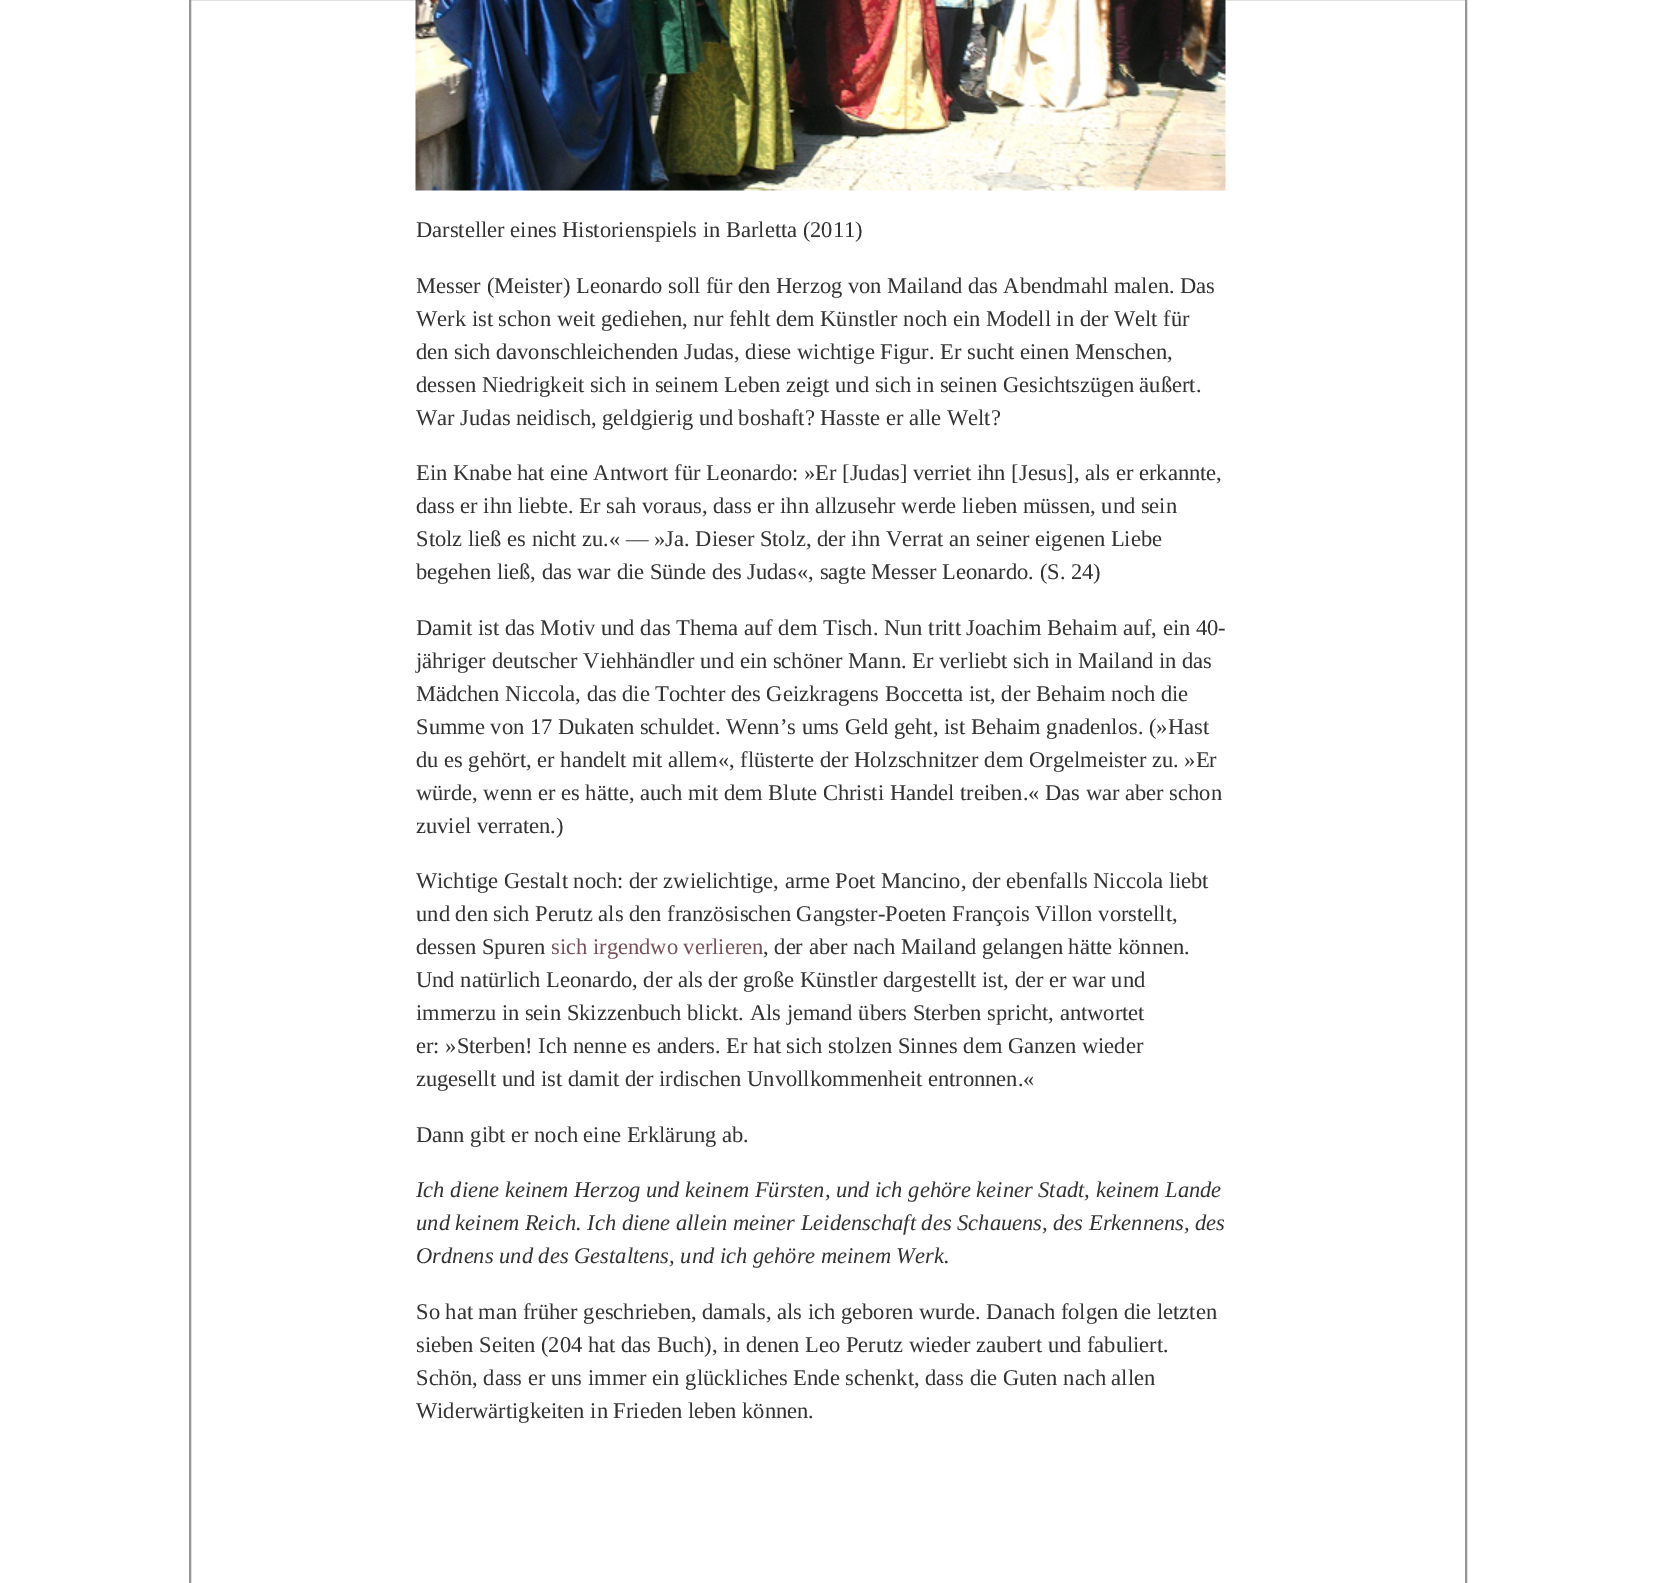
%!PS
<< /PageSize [1656 1583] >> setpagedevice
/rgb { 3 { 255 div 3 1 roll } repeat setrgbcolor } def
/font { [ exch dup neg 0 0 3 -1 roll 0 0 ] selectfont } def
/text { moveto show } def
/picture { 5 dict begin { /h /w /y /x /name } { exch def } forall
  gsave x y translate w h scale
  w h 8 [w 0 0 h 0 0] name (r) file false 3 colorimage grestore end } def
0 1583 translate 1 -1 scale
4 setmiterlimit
255 255 255 rgb
0 0 1656 1583 rectfill
149 149 150 rgb
2 setlinewidth
190 -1 1276 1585 rectstroke
(img_01.rgb) 415 0 811 191 picture
/LiberationSerif-Regular 22.5 font
51 51 51 rgb
(Darsteller eines Historienspiels in Barletta \(2011\)) 416 237 text
(Messer \(Meister\) Leonardo soll für den Herzog von Mailand das Abendmahl malen. Das) 416 293 text
(Werk ist schon weit gediehen, nur fehlt dem Künstler noch ein Modell in der Welt für) 416 326 text
(den sich davonschleichenden Judas, diese wichtige Figur. Er sucht einen Menschen,) 416 359 text
(dessen Niedrigkeit sich in seinem Leben zeigt und sich in seinen Gesichtszügen äußert.) 416 392 text
(War Judas neidisch, geldgierig und boshaft? Hasste er alle Welt?) 416 425 text
(Ein Knabe hat eine Antwort für Leonardo: »Er [Judas] verriet ihn [Jesus], als er erkannte,) 416 480 text
(dass er ihn liebte. Er sah voraus, dass er ihn allzusehr werde lieben müssen, und sein) 416 513 text
(Stolz ließ es nicht zu.« ― »Ja. Dieser Stolz, der ihn Verrat an seiner eigenen Liebe) 416 546 text
(begehen ließ, das war die Sünde des Judas«, sagte Messer Leonardo. \(S. 24\)) 416 579 text
(Damit ist das Motiv und das Thema auf dem Tisch. Nun tritt Joachim Behaim auf, ein 40-) 416 635 text
(jähriger deutscher Viehhändler und ein schöner Mann. Er verliebt sich in Mailand in das) 416 668 text
(Mädchen Niccola, das die Tochter des Geizkragens Boccetta ist, der Behaim noch die) 416 701 text
(Summe von 17 Dukaten schuldet. Wenn’s ums Geld geht, ist Behaim gnadenlos. \(»Hast) 416 734 text
(du es gehört, er handelt mit allem«, flüsterte der Holzschnitzer dem Orgelmeister zu. »Er) 416 767 text
(würde, wenn er es hätte, auch mit dem Blute Christi Handel treiben.« Das war aber schon) 416 800 text
(zuviel verraten.\)) 416 833 text
(Wichtige Gestalt noch: der zwielichtige, arme Poet Mancino, der ebenfalls Niccola liebt) 416 888 text
(und den sich Perutz als den französischen Gangster-Poeten François Villon vorstellt,) 416 921 text
(dessen Spuren) 416 954 text
120 80 91 rgb
(sich irgendwo verlieren) 551 954 text
51 51 51 rgb
(, der aber nach Mailand gelangen hätte können.) 763 954 text
(Und natürlich Leonardo, der als der große Künstler dargestellt ist, der er war und) 416 987 text
(immerzu in sein Skizzenbuch blickt. Als jemand übers Sterben spricht, antwortet) 416 1020 text
(er: »Sterben! Ich nenne es anders. Er hat sich stolzen Sinnes dem Ganzen wieder) 416 1053 text
(zugesellt und ist damit der irdischen Unvollkommenheit entronnen.«) 416 1086 text
(Dann gibt er noch eine Erklärung ab.) 416 1142 text
/LiberationSerif-Italic 22.5 font
(Ich diene keinem Herzog und keinem Fürsten, und ich gehöre keiner Stadt, keinem Lande) 416 1197 text
(und keinem Reich. Ich diene allein meiner Leidenschaft des Schauens, des Erkennens, des) 416 1230 text
(Ordnens und des Gestaltens, und ich gehöre meinem Werk.) 416 1263 text
/LiberationSerif-Regular 22.5 font
(So hat man früher geschrieben, damals, als ich geboren wurde. Danach folgen die letzten) 416 1319 text
(sieben Seiten \(204 hat das Buch\), in denen Leo Perutz wieder zaubert und fabuliert.) 416 1352 text
(Schön, dass er uns immer ein glückliches Ende schenkt, dass die Guten nach allen) 416 1385 text
(Widerwärtigkeiten in Frieden leben können.) 416 1418 text
showpage
